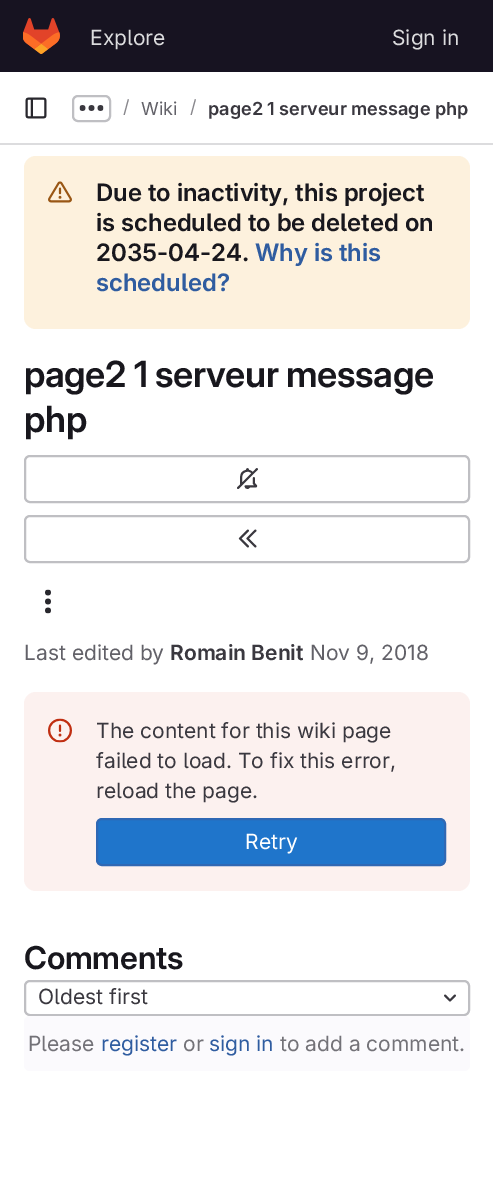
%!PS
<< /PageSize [493 1203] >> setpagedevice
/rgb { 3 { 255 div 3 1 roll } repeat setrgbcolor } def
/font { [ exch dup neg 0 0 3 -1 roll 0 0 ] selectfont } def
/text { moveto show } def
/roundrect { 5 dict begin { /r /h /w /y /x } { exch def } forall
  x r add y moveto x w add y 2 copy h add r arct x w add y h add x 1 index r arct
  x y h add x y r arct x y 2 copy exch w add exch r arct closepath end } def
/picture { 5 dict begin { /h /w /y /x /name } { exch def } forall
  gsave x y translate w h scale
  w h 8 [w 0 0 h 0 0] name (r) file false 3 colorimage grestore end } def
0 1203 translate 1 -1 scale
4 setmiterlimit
255 255 255 rgb
0 0 493 1203 rectfill
23 19 33 rgb
0 0 493 72 rectfill
(img_01.rgb) 23 18 37 36 picture
220 220 222 rgb
0 143 493 2 rectfill
(img_02.rgb) 25 97 22 22 picture
191 191 195 rgb
2 setlinewidth
73 96 37 25 5 roundrect stroke
(img_03.rgb) 79 105 25 6 picture
253 241 221 rgb
24 156 446 173 12 roundrect fill
(img_04.rgb) 48 181 24 22 picture
191 191 195 rgb
25 456 444 46 5 roundrect stroke
(img_05.rgb) 237 468 21 21 picture
25 516 444 46 5 roundrect stroke
(img_06.rgb) 238 529 19 19 picture
(img_07.rgb) 45 589 6 25 picture
252 241 239 rgb
24 692 446 199 12 roundrect fill
(img_08.rgb) 48 718 24 25 picture
31 117 203 rgb
97 819 348 46 5 roundrect gsave fill grestore
47 104 180 rgb
stroke
191 191 195 rgb
25 981 444 34 5 roundrect stroke
(img_09.rgb) 444 994 12 8 picture
251 250 253 rgb
24 1016 446 55 6 roundrect fill
/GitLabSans-Regular 21 font
220 220 222 rgb
(Explore) 90 45 text
(Sign in) 392 45 text
/GitLabSans-Regular 18 font
137 136 141 rgb
(/) 123 113 text
98 97 104 rgb
(Wiki) 141 115 text
137 136 141 rgb
(/) 190 113 text
/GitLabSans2-SemiBold 18 font
58 56 63 rgb
(page2 1 serveur message php) 208 115 text
/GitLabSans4-SemiBold 24 font
24 23 29 rgb
(Due to inactivity, this project) 96 201 text
(is scheduled to be deleted on) 96 231 text
(2035-04-24.) 96 261 text
47 92 160 rgb
(Why is this) 255 261 text
(scheduled?) 96 291 text
/GitLabSans-SemiBold 36 font
24 23 29 rgb
24 387 moveto -0.4 0 (page2 1 serveur message) ashow
24 432 moveto -0.4 0 (php) ashow
/GitLabSans-Regular 21 font
98 97 104 rgb
(Last edited by) 24 660 text
/GitLabSans2-SemiBold 21 font
58 56 63 rgb
(Romain Benit) 170 660 text
/GitLabSans-Regular 21 font
98 97 104 rgb
(Nov 9, 2018) 310 660 text
58 56 63 rgb
(The content for this wiki page) 96 738 text
(failed to load. To fix this error,) 96 768 text
(reload the page.) 96 798 text
255 255 255 rgb
(Retry) 245 849 text
/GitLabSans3-SemiBold 31.5 font
24 23 29 rgb
24 969 moveto -0.25 0 (Comments) ashow
/GitLabSans-Regular 21 font
58 56 63 rgb
(Oldest first) 38 1004 text
115 114 120 rgb
(Please) 28 1051 text
47 92 160 rgb
(register) 101 1051 text
115 114 120 rgb
(or) 183 1051 text
47 92 160 rgb
(sign in) 209 1051 text
115 114 120 rgb
(to add a comment.) 280 1051 text
showpage
